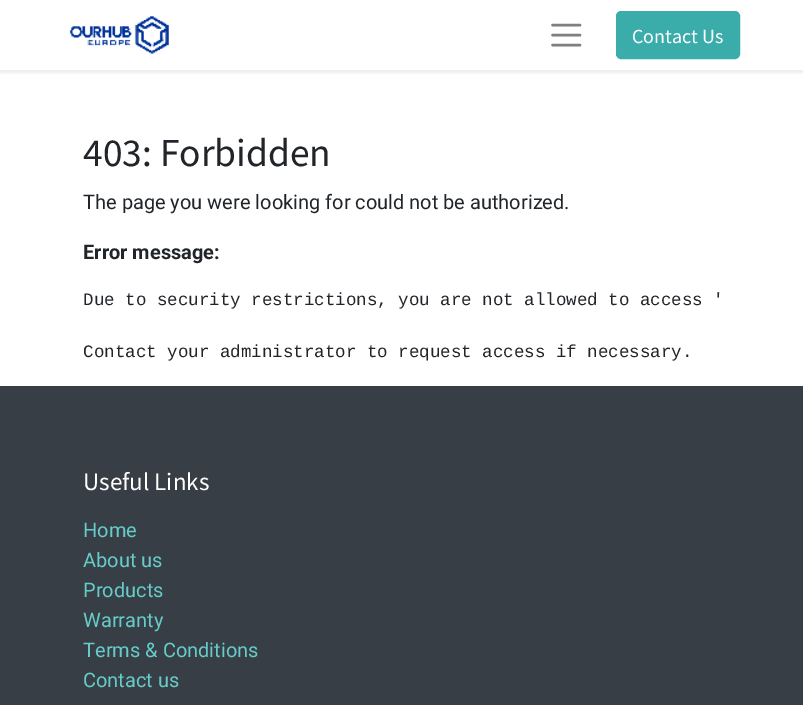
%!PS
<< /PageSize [803 705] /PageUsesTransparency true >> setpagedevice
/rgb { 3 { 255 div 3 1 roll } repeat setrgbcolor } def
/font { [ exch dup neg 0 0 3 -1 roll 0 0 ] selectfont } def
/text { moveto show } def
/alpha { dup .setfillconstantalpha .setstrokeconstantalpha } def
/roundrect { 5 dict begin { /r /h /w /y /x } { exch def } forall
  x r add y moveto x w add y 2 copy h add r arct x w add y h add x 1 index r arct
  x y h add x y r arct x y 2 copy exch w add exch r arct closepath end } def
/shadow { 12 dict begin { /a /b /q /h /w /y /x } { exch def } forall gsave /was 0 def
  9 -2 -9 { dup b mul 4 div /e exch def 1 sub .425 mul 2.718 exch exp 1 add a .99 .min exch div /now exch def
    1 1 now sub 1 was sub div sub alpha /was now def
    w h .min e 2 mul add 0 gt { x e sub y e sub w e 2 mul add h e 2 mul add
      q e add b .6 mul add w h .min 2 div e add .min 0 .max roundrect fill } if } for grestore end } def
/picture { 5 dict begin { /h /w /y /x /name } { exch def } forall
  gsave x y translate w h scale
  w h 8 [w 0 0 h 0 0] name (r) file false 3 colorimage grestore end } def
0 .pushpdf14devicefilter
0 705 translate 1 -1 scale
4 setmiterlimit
255 255 255 rgb
0 0 803 705 rectfill
gsave
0 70 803 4 rectclip
0 0 0 rgb
0 3 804 70 0 2.5 0.07 shadow
grestore
(img_01.rgb) 69 16 100 38 picture
128 128 128 rgb
2.5 setlinewidth
1 setlinecap
552.5 25 moveto 27.5 0 rlineto 552.5 35 moveto 27.5 0 rlineto 552.5 45 moveto 27.5 0 rlineto stroke
58 173 170 rgb
616.5 11.5 123 47 4.5 roundrect gsave fill grestore
1 setlinewidth
0 setlinecap
stroke
56 62 69 rgb
0 386 803 319 rectfill
/SourceSansPro-Regular 20 font
255 255 255 rgb
(Contact Us) 632 43 text
/SourceSansPro-Regular 39.5 font
33 37 41 rgb
(403: Forbidden) 83 166 text
/Roboto-Regular 20 font
(The page you were looking for could not be authorized.) 83 209 text
/Roboto-Bold 20 font
(Error message:) 83 259 text
/LiberationMono-Regular 17.5 font
(Due to security restrictions, you are not allowed to access ') 83 305 text
(Contact your administrator to request access if necessary.) 83 357 text
/SourceSansPro-Regular 25 font
255 255 255 rgb
(Useful Links) 83 490 text
/Roboto-Regular 20 font
102 204 202 rgb
(Home) 83 537 text
(About us) 83 567 text
(Products) 83 597 text
(Warranty) 83 627 text
(Terms & Conditions) 83 657 text
(Contact us) 83 687 text
.poppdf14devicefilter showpage
